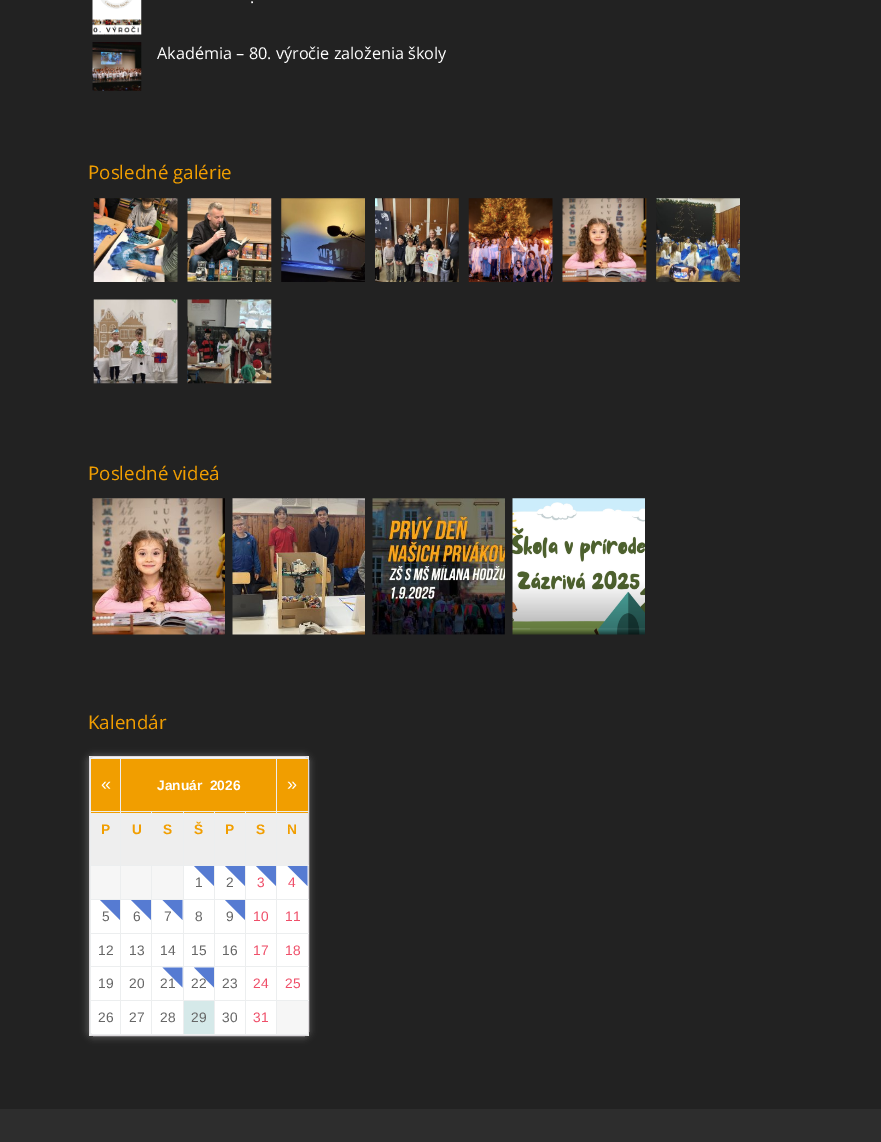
%!PS
<< /PageSize [881 1142] /PageUsesTransparency true >> setpagedevice
/rgb { 3 { 255 div 3 1 roll } repeat setrgbcolor } def
/font { [ exch dup neg 0 0 3 -1 roll 0 0 ] selectfont } def
/text { moveto show } def
/alpha { dup .setfillconstantalpha .setstrokeconstantalpha } def
/roundrect { 5 dict begin { /r /h /w /y /x } { exch def } forall
  x r add y moveto x w add y 2 copy h add r arct x w add y h add x 1 index r arct
  x y h add x y r arct x y 2 copy exch w add exch r arct closepath end } def
/shadow { 12 dict begin { /a /b /q /h /w /y /x } { exch def } forall gsave /was 0 def
  9 -2 -9 { dup b mul 4 div /e exch def 1 sub .425 mul 2.718 exch exp 1 add a .99 .min exch div /now exch def
    1 1 now sub 1 was sub div sub alpha /was now def
    w h .min e 2 mul add 0 gt { x e sub y e sub w e 2 mul add h e 2 mul add
      q e add b .6 mul add w h .min 2 div e add .min 0 .max roundrect fill } if } for grestore end } def
/picture { 5 dict begin { /h /w /y /x /name } { exch def } forall
  gsave x y translate w h scale
  w h 8 [w 0 0 h 0 0] name (r) file false 3 colorimage grestore end } def
0 .pushpdf14devicefilter
0 1142 translate 1 -1 scale
4 setmiterlimit
34 34 34 rgb
0 0 881 1142 rectfill
(img_01.rgb) 92 0 50 35 picture
(img_02.rgb) 92 42 50 49 picture
(img_03.rgb) 93 198 85 84 picture
(img_04.rgb) 187 198 85 84 picture
(img_05.rgb) 281 198 84 84 picture
(img_06.rgb) 375 198 84 84 picture
(img_07.rgb) 468 198 85 84 picture
(img_08.rgb) 562 198 85 84 picture
(img_09.rgb) 656 198 84 84 picture
(img_10.rgb) 93 299 85 85 picture
(img_11.rgb) 187 299 85 85 picture
(img_12.rgb) 92 498 133 137 picture
(img_13.rgb) 232 498 133 137 picture
(img_14.rgb) 372 498 133 137 picture
(img_15.rgb) 512 498 133 137 picture
255 255 255 rgb
89 756 220 280 rectfill
gsave
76 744 moveto 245 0 rlineto 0 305 rlineto -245 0 rlineto closepath 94 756 moveto 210 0 rlineto 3 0 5 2 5 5 rcurveto 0 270 rlineto 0 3 -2 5 -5 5 rcurveto -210 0 rlineto -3 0 -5 -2 -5 -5 rcurveto 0 -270 rlineto 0 -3 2 -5 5 -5 rcurveto closepath eoclip newpath
145 145 145 rgb
86 754 225 285 8 3 0.35 shadow
grestore
222 218 222 rgb
89.5 756.5 219 279 4.5 roundrect stroke
236 238 239 rgb
90 758 219 1 rectfill
90 1034 218 1 rectfill
90 758 1 277 rectfill
241 158 0 rgb
91 759 29 54 rectfill
121 759 155 54 rectfill
277 759 31 54 rectfill
236 238 239 rgb
276 811 33 1 rectfill
276 865 33 1 rectfill
276 899 33 1 rectfill
276 933 33 1 rectfill
276 966 33 1 rectfill
276 1000 33 1 rectfill
276 1000 1 35 rectfill
245 1000 33 1 rectfill
276 966 1 35 rectfill
245 966 33 1 rectfill
276 933 1 35 rectfill
245 933 33 1 rectfill
276 899 1 35 rectfill
245 899 33 1 rectfill
276 865 1 35 rectfill
245 865 33 1 rectfill
276 811 1 55 rectfill
245 811 33 1 rectfill
245 1000 1 35 rectfill
214 1000 32 1 rectfill
245 966 1 35 rectfill
214 966 32 1 rectfill
245 933 1 35 rectfill
214 933 32 1 rectfill
245 899 1 35 rectfill
214 899 32 1 rectfill
245 865 1 35 rectfill
214 865 32 1 rectfill
245 811 1 55 rectfill
214 811 32 1 rectfill
214 1000 1 35 rectfill
183 1000 32 1 rectfill
214 966 1 35 rectfill
183 966 32 1 rectfill
214 933 1 35 rectfill
183 933 32 1 rectfill
214 899 1 35 rectfill
183 899 32 1 rectfill
214 865 1 35 rectfill
183 865 32 1 rectfill
214 811 1 55 rectfill
183 811 32 1 rectfill
183 1000 1 35 rectfill
151 1000 33 1 rectfill
183 966 1 35 rectfill
151 966 33 1 rectfill
183 933 1 35 rectfill
151 933 33 1 rectfill
183 899 1 35 rectfill
151 899 33 1 rectfill
183 865 1 35 rectfill
151 865 33 1 rectfill
183 811 1 55 rectfill
151 811 33 1 rectfill
151 811 1 2 rectfill
120 811 33 1 rectfill
246 246 246 rgb
121 866 62 33 rectfill
236 238 239 rgb
151 1000 1 35 rectfill
120 1000 33 1 rectfill
151 966 1 35 rectfill
120 966 33 1 rectfill
151 933 1 35 rectfill
120 933 33 1 rectfill
151 899 1 35 rectfill
120 899 33 1 rectfill
151 865 1 35 rectfill
120 865 33 1 rectfill
120 1000 1 35 rectfill
90 1000 31 1 rectfill
120 966 1 35 rectfill
90 966 31 1 rectfill
120 933 1 35 rectfill
90 933 31 1 rectfill
120 899 1 35 rectfill
90 899 31 1 rectfill
120 865 1 35 rectfill
90 865 31 1 rectfill
120 811 1 55 rectfill
90 811 31 1 rectfill
120 758 1 55 rectfill
276 758 1 55 rectfill
238 238 238 rgb
91 813 29 52 rectfill
121 813 62 52 rectfill
184 813 30 52 rectfill
215 813 30 52 rectfill
246 813 30 52 rectfill
277 813 31 52 rectfill
246 246 246 rgb
91 866 29 33 rectfill
213 233 233 rgb
184 1001 30 33 rectfill
246 246 246 rgb
277 1001 31 33 rectfill
45 45 45 rgb
0 1109 881 33 rectfill
/OpenSans-Regular 16.25 font
255 255 255 rgb
(.) 250 3 text
(Akadémia – 80. výročie založenia školy) 157 59 text
/OpenSans-Regular 18.75 font
241 158 0 rgb
(Posledné galérie) 88 179 text
(Posledné videá) 88 480 text
(Kalendár) 88 729 text
/LiberationSans-Regular 18 font
255 255 255 rgb
(«) 101 790 text
/LiberationSans-Bold 13.75 font
(Január  2026) 157 790 text
/LiberationSans-Regular 18 font
(») 287 790 text
/LiberationSans-Bold 13.75 font
241 158 0 rgb
(P) 101 834 text
(U) 132 834 text
(S) 163 834 text
(Š) 194 834 text
(P) 225 834 text
(S) 256 834 text
(N) 287 834 text
/LiberationSans-Regular 13.75 font
102 102 102 rgb
(1) 195 887 text
86 123 210 rgb
194 866 moveto 20 0 rlineto 0 20 rlineto closepath fill
102 102 102 rgb
(2) 226 887 text
86 123 210 rgb
225 866 moveto 20 0 rlineto 0 20 rlineto closepath fill
239 79 105 rgb
(3) 257 887 text
86 123 210 rgb
256 866 moveto 20 0 rlineto 0 20 rlineto closepath fill
239 79 105 rgb
(4) 288 887 text
86 123 210 rgb
287.5 866 moveto 20 0 rlineto 0 20 rlineto closepath fill
102 102 102 rgb
(5) 102 921 text
86 123 210 rgb
100 900 moveto 20 0 rlineto 0 20 rlineto closepath fill
102 102 102 rgb
(6) 133 921 text
86 123 210 rgb
131 900 moveto 20 0 rlineto 0 20 rlineto closepath fill
102 102 102 rgb
(7) 164 921 text
86 123 210 rgb
162.5 900 moveto 20 0 rlineto 0 20 rlineto closepath fill
102 102 102 rgb
(8) 195 921 text
(9) 226 921 text
86 123 210 rgb
225 900 moveto 20 0 rlineto 0 20 rlineto closepath fill
239 79 105 rgb
(10) 253 921 text
(11) 285 921 text
102 102 102 rgb
(12) 98 955 text
(13) 129 955 text
(14) 160 955 text
(15) 191 955 text
(16) 222 955 text
239 79 105 rgb
(17) 253 955 text
(18) 285 955 text
102 102 102 rgb
(19) 98 988 text
(20) 129 988 text
(21) 160 988 text
86 123 210 rgb
162.5 967.5 moveto 20 0 rlineto 0 20 rlineto closepath fill
102 102 102 rgb
(22) 191 988 text
86 123 210 rgb
194 967.5 moveto 20 0 rlineto 0 20 rlineto closepath fill
102 102 102 rgb
(23) 222 988 text
239 79 105 rgb
(24) 253 988 text
(25) 285 988 text
102 102 102 rgb
(26) 98 1022 text
(27) 129 1022 text
(28) 160 1022 text
(29) 191 1022 text
(30) 222 1022 text
239 79 105 rgb
(31) 253 1022 text
.poppdf14devicefilter showpage
